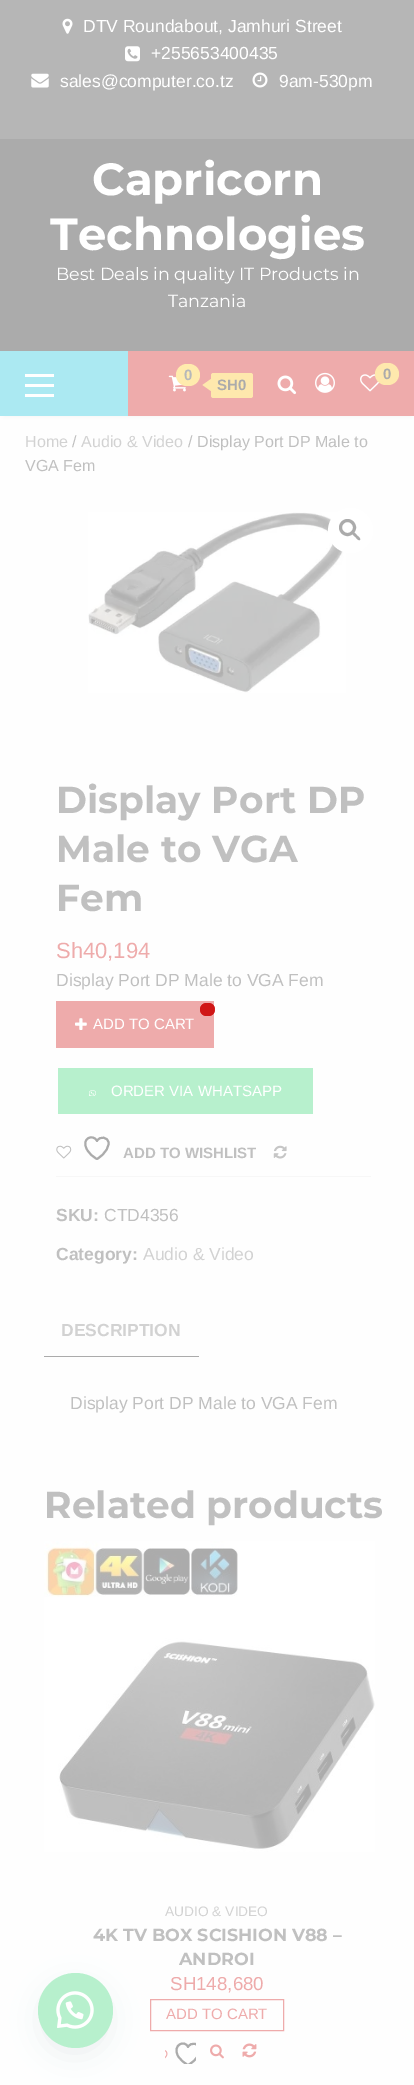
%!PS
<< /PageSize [414 2085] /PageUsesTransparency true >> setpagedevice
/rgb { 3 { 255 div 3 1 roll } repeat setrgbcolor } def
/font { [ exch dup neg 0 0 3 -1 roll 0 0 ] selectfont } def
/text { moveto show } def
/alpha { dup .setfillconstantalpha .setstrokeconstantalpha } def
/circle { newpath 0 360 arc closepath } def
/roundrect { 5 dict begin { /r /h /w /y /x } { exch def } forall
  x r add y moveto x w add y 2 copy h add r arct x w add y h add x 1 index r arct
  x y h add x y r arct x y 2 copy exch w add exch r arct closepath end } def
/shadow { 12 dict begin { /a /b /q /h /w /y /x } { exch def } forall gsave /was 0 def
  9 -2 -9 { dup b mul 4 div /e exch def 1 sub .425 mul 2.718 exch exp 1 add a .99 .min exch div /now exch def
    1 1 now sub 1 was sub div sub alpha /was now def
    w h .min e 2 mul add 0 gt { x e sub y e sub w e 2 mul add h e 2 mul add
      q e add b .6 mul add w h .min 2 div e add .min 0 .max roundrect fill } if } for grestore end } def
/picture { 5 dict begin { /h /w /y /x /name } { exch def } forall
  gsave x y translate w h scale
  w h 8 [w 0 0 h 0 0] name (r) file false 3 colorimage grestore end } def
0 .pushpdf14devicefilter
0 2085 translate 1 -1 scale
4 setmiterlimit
254 254 254 rgb
0 0 414 2085 rectfill
182 182 182 rgb
0 0 414 139 rectfill
(img_01.rgb) 62 18 11 16 picture
(img_02.rgb) 125 46 15 16 picture
(img_03.rgb) 31 73 18 15 picture
(img_04.rgb) 252 72 16 16 picture
171 171 171 rgb
0 139 414 212 rectfill
5 359 405 55 0 3 0.3 shadow
171 233 242 rgb
0 351 128 65 rectfill
255 255 255 rgb
25 384 29 3 rectfill
25 374 29 3 rectfill
25 394 29 3 rectfill
238 171 171 rgb
128 351 286 65 rectfill
(img_05.rgb) 168 375 18 17 picture
255 235 173 rgb
176 364 24 22 11 roundrect fill
254 232 173 rgb
211 373 42 25 2.5 roundrect fill
211 379 moveto 0 12 rlineto -8.5 -6 rlineto closepath fill
(img_06.rgb) 277 375 20 20 picture
(img_07.rgb) 315 372 20 21 picture
(img_08.rgb) 360 374 20 18 picture
375 363 24 22 11 roundrect fill
(img_09.rgb) 88 512 258 181 picture
255 255 255 rgb
350.5 530.5 22.5 circle fill
171 171 171 rgb
3 setlinewidth
347.5 527.5 7 circle stroke
352.5 532.5 moveto 1.5 -1 4 2 4.5 3 rcurveto 1 0.5 4 3 3 4.5 rcurveto -1.5 1 -4 -2 -4.5 -3 rcurveto -1 -0.5 -4 -3 -3 -4.5 rcurveto closepath fill
238 171 171 rgb
56 1001 158 47 rectfill
(img_10.rgb) 75 1018 12 12 picture
183 240 205 rgb
58 1068 255 46 rectfill
(img_11.rgb) 89 1090 7 6 picture
(img_12.rgb) 56 1145 16 14 picture
171 171 171 rgb
2 setlinewidth
1 setlinecap
1 setlinejoin
108.5 1143 moveto 0 -6 -9 -7.5 -11.5 -2 rcurveto -3.5 -7.5 -16.5 -3 -10 8.5 rcurveto 2 4 6 7.5 10 9.5 rcurveto 0 0 11.5 -6.5 11.5 -16 rcurveto closepath stroke
(img_13.rgb) 273 1145 14 14 picture
247 247 247 rgb
56 1176 315 1 rectfill
171 171 171 rgb
44 1356 155 1 rectfill
(img_14.rgb) 44 1541 331 311 picture
238 171 171 rgb
1 setlinewidth
0 setlinecap
0 setlinejoin
150.5 1999.5 133 31 rectstroke
(img_15.rgb) 165 2050 3 9 picture
gsave
173 2039 23 25 rectclip
171 171 171 rgb
2 setlinewidth
1 setlinecap
1 setlinejoin
200 2049.5 moveto 0 -6.5 -9.5 -8 -12 -2.5 rcurveto -3 -7.5 -16 -2.5 -10 9 rcurveto 2.5 4 6 7 10 9 rcurveto 0 0 12 -6 12 -15.5 rcurveto closepath stroke
grestore
(img_16.rgb) 210 2044 14 15 picture
(img_17.rgb) 242 2043 15 15 picture
0.67 alpha
204 0 0 rgb
200 1003 15 13 6.5 roundrect fill
0.47 alpha
200 1003 15 13 6.5 roundrect fill
0.28 alpha
200 1003 15 13 6.5 roundrect fill
1 alpha
186 191 197 rgb
44 1989 62 62 31 15.5 0.3 shadow
183 240 205 rgb
75.5 2010.5 37.5 circle fill
(img_18.rgb) 56 1991 38 38 picture
/LiberationSans-Regular 17.5 font
255 255 255 rgb
(DTV Roundabout, Jamhuri Street) 83 32 text
(+255653400435) 151 59 text
(sales@computer.co.tz) 60 87 text
(9am-530pm) 279 87 text
/Montserrat-Bold 45 font
(Capricorn) 92 195 text
(Technologies) 50 250 text
/Montserrat-Regular 17.5 font
(Best Deals in quality IT Products in) 56 280 text
(Tanzania) 168 307 text
/LiberationSans-Bold 15 font
182 184 186 rgb
(0) 184 380 text
171 171 171 rgb
(SH0) 217 390 text
(0) 383 379 text
/LiberationSans-Regular 16.1 font
210 210 210 rgb
(Home) 25 447 text
192 192 192 rgb
(/) 72 447 text
210 210 210 rgb
(Audio & Video) 81 447 text
192 192 192 rgb
(/ Display Port DP Male to) 188 447 text
(VGA Fem) 25 471 text
/Montserrat-Bold 37.5 font
(Display Port DP) 56 813 text
(Male to VGA) 56 862 text
(Fem) 56 911 text
/LiberationSans-Regular 22 font
238 171 171 rgb
(Sh40,194) 56 958 text
/LiberationSans-Regular 17.5 font
192 192 192 rgb
(Display Port DP Male to VGA Fem) 56 986 text
/LiberationSans-Regular 15 font
255 255 255 rgb
(ADD TO CART) 93 1029 text
(ORDER VIA WHATSAPP) 111 1096 text
/LiberationSans-Bold 15 font
192 192 192 rgb
(ADD TO WISHLIST) 123 1158 text
/LiberationSans-Bold 17.5 font
(SKU:) 56 1221 text
/LiberationSans-Regular 17.5 font
(CTD4356) 104 1221 text
/LiberationSans-Bold 17.5 font
(Category:) 56 1260 text
/LiberationSans-Regular 17.5 font
210 210 210 rgb
(Audio & Video) 143 1260 text
/LiberationSans-Bold 17.5 font
(DESCRIPTION) 61 1336 text
/LiberationSans-Regular 17.5 font
192 192 192 rgb
(Display Port DP Male to VGA Fem) 70 1409 text
/Montserrat-Bold 37.5 font
(Related products) 44 1518 text
/LiberationSans-Regular 13.75 font
210 210 210 rgb
(AUDIO & VIDEO) 165 1916 text
/Montserrat-Bold 17.5 font
192 192 192 rgb
(4K TV BOX SCISHION V88 –) 93 1941 text
(ANDROI) 179 1965 text
/LiberationSans-Regular 18.75 font
238 171 171 rgb
(SH148,680) 170 1990 text
/LiberationSans-Regular 15 font
(ADD TO CART) 166 2019 text
.poppdf14devicefilter showpage
